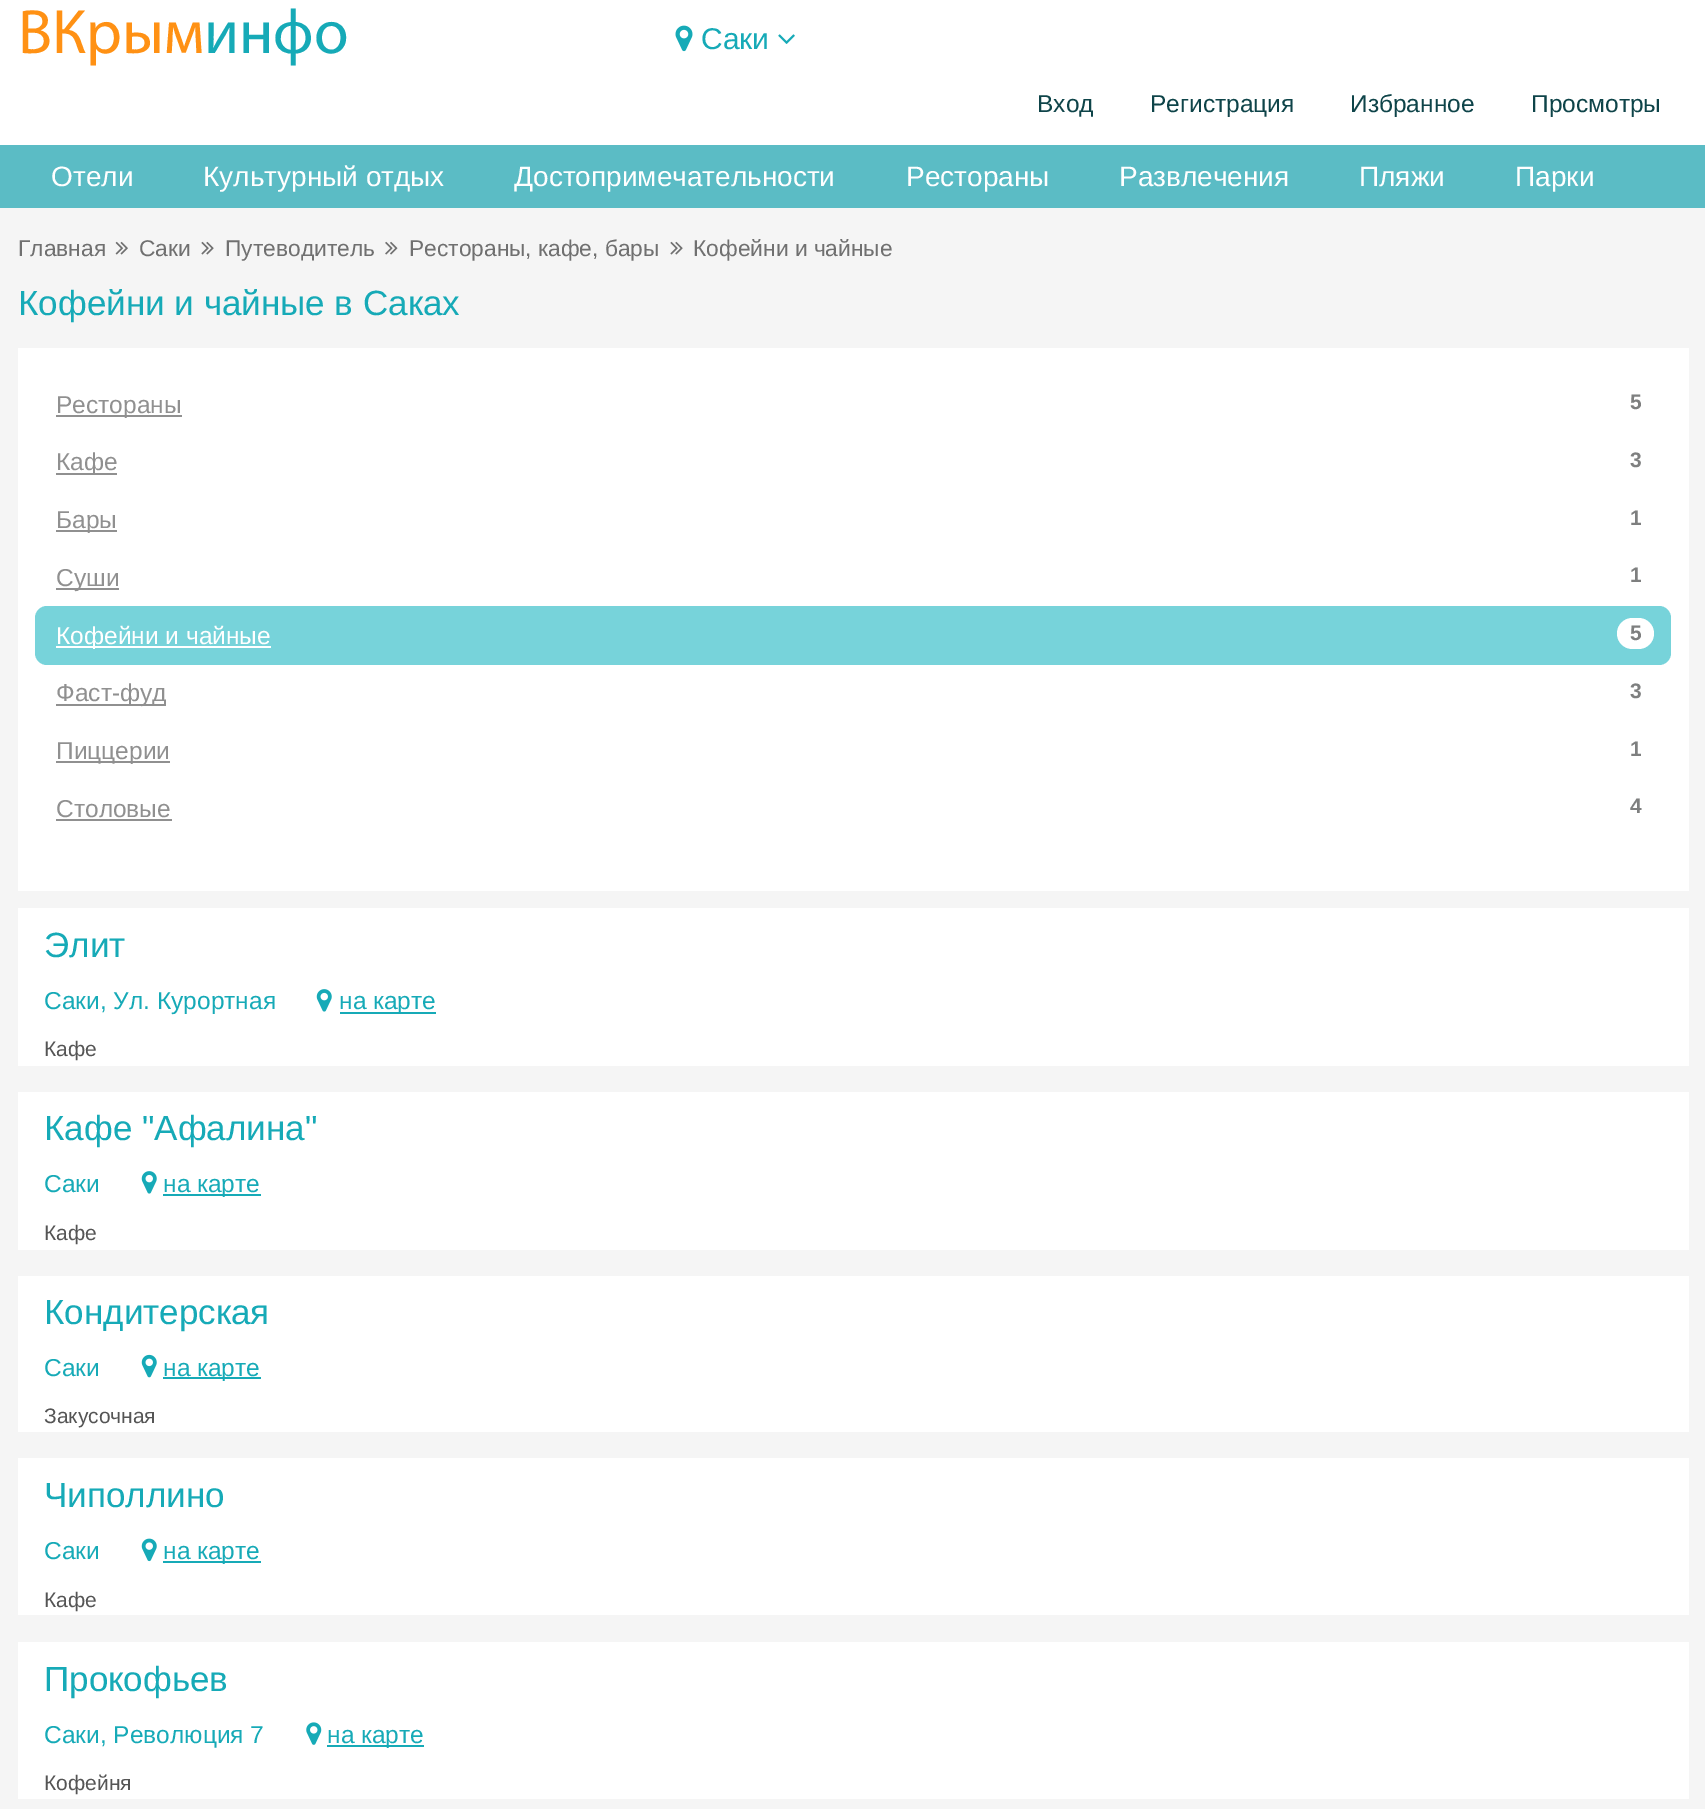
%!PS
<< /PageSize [1705 1809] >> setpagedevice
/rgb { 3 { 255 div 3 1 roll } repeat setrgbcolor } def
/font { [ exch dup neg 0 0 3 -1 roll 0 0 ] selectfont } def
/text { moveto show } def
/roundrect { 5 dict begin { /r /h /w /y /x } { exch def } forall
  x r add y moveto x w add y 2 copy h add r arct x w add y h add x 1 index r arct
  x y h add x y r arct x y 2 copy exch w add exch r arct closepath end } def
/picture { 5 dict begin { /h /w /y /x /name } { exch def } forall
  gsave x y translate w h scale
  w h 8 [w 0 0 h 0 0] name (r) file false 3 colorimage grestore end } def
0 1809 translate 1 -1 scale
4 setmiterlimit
245 245 245 rgb
0 0 1705 1809 rectfill
255 255 255 rgb
0 0 1705 145 rectfill
(img_01.rgb) 675 25 18 27 picture
(img_02.rgb) 778 34 17 10 picture
91 188 197 rgb
0 145 1705 63 rectfill
(img_03.rgb) 115 241 13 14 picture
(img_04.rgb) 201 241 13 14 picture
(img_05.rgb) 385 241 13 14 picture
(img_04.rgb) 670 241 13 14 picture
255 255 255 rgb
18 348 1671 543 rectfill
144 144 144 rgb
56 415 126 2 rectfill
56 473 61 2 rectfill
56 530 61 2 rectfill
56 588 63 2 rectfill
119 211 218 rgb
35 606 1636 59 12 roundrect fill
255 255 255 rgb
56 646 215 2 rectfill
1617 618 37 31 15.5 roundrect fill
144 144 144 rgb
56 704 110 2 rectfill
56 761 114 2 rectfill
56 819 116 2 rectfill
255 255 255 rgb
18 908 1671 158 rectfill
(img_06.rgb) 316 989 16 23 picture
22 170 183 rgb
340 1012 96 2 rectfill
255 255 255 rgb
18 1092 1671 158 rectfill
(img_06.rgb) 141 1171 16 23 picture
22 170 183 rgb
163 1194 98 2 rectfill
255 255 255 rgb
18 1276 1671 156 rectfill
(img_07.rgb) 141 1354 16 24 picture
22 170 183 rgb
163 1377 98 2 rectfill
255 255 255 rgb
18 1458 1671 157 rectfill
(img_08.rgb) 141 1538 16 24 picture
22 170 183 rgb
163 1561 98 2 rectfill
255 255 255 rgb
18 1642 1671 157 rectfill
(img_09.rgb) 306 1722 16 23 picture
22 170 183 rgb
327 1745 97 2 rectfill
/Myriad-Regular 63 font
255 145 20 rgb
(ВКрым) 18 53 text
22 170 183 rgb
(инфо) 204 53 text
/LiberationSans-Regular 30 font
(Саки) 701 49 text
/LiberationSans-Regular 24.5 font
14 68 73 rgb
(Вход) 1037 112 text
(Регистрация) 1150 112 text
(Избранное) 1350 112 text
(Просмотры) 1531 112 text
/LiberationSans-Regular 28 font
255 255 255 rgb
(Отели) 51 186 text
(Культурный отдых) 203 186 text
(Достопримечательности) 514 186 text
(Рестораны) 906 186 text
(Развлечения) 1119 186 text
(Пляжи) 1359 186 text
(Парки) 1515 186 text
/LiberationSans-Regular 22.75 font
112 112 112 rgb
(Главная) 18 256 text
(Саки) 139 256 text
(Путеводитель) 225 256 text
(Рестораны, кафе, бары) 409 256 text
(Кофейни и чайные) 693 256 text
/LiberationSans-Regular 35 font
22 170 183 rgb
(Кофейни и чайные в Саках) 18 315 text
/LiberationSans-Regular 24.5 font
144 144 144 rgb
(Рестораны) 56 413 text
/LiberationSans-Bold 21 font
126 127 127 rgb
(5) 1630 409 text
/LiberationSans-Regular 24.5 font
144 144 144 rgb
(Кафе) 56 470 text
/LiberationSans-Bold 21 font
126 127 127 rgb
(3) 1630 467 text
/LiberationSans-Regular 24.5 font
144 144 144 rgb
(Бары) 56 528 text
/LiberationSans-Bold 21 font
126 127 127 rgb
(1) 1630 525 text
/LiberationSans-Regular 24.5 font
144 144 144 rgb
(Суши) 56 586 text
/LiberationSans-Bold 21 font
126 127 127 rgb
(1) 1630 582 text
/LiberationSans-Regular 24.5 font
255 255 255 rgb
(Кофейни и чайные) 56 644 text
/LiberationSans-Bold 21 font
126 127 127 rgb
(5) 1630 640 text
/LiberationSans-Regular 24.5 font
144 144 144 rgb
(Фаст-фуд) 56 701 text
/LiberationSans-Bold 21 font
126 127 127 rgb
(3) 1630 698 text
/LiberationSans-Regular 24.5 font
144 144 144 rgb
(Пиццерии) 56 759 text
/LiberationSans-Bold 21 font
126 127 127 rgb
(1) 1630 756 text
/LiberationSans-Regular 24.5 font
144 144 144 rgb
(Столовые) 56 817 text
/LiberationSans-Bold 21 font
126 127 127 rgb
(4) 1630 813 text
/LiberationSans-Regular 35 font
22 170 183 rgb
(Элит) 44 957 text
/LiberationSans-Regular 24.5 font
(Саки, Ул. Курортная) 44 1009 text
(на карте) 339 1009 text
/LiberationSans-Regular 21 font
85 85 85 rgb
(Кафе) 44 1056 text
/LiberationSans-Regular 35 font
22 170 183 rgb
(Кафе "Афалина") 44 1140 text
/LiberationSans-Regular 24.5 font
(Саки) 44 1192 text
(на карте) 163 1192 text
/LiberationSans-Regular 21 font
85 85 85 rgb
(Кафе) 44 1240 text
/LiberationSans-Regular 35 font
22 170 183 rgb
(Кондитерская) 44 1324 text
/LiberationSans-Regular 24.5 font
(Саки) 44 1376 text
(на карте) 163 1376 text
/LiberationSans-Regular 21 font
85 85 85 rgb
(Закусочная) 44 1423 text
/LiberationSans-Regular 35 font
22 170 183 rgb
(Чиполлино) 44 1507 text
/LiberationSans-Regular 24.5 font
(Саки) 44 1559 text
(на карте) 163 1559 text
/LiberationSans-Regular 21 font
85 85 85 rgb
(Кафе) 44 1607 text
/LiberationSans-Regular 35 font
22 170 183 rgb
(Прокофьев) 44 1691 text
/LiberationSans-Regular 24.5 font
(Саки, Революция 7) 44 1743 text
(на карте) 327 1743 text
/LiberationSans-Regular 21 font
85 85 85 rgb
(Кофейня) 44 1790 text
showpage
